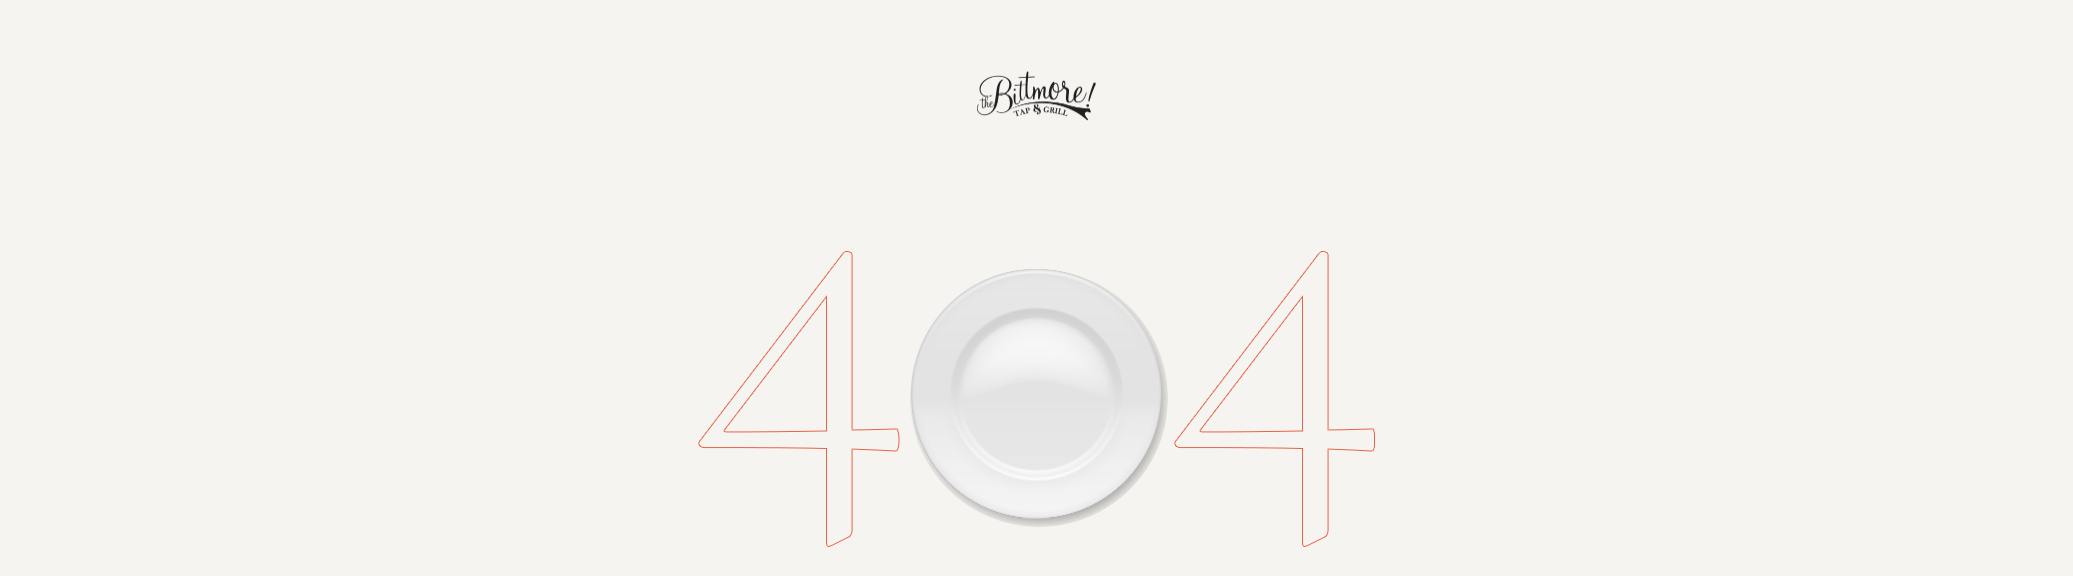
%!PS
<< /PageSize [2073 576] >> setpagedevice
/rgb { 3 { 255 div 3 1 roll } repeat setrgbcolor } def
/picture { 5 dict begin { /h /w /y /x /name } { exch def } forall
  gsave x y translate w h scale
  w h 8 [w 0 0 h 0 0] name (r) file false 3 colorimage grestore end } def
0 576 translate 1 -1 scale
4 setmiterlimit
246 244 241 rgb
0 0 2073 576 rectfill
(img_01.rgb) 977 71 119 50 picture
(img_02.rgb) 698 251 677 296 picture
showpage
